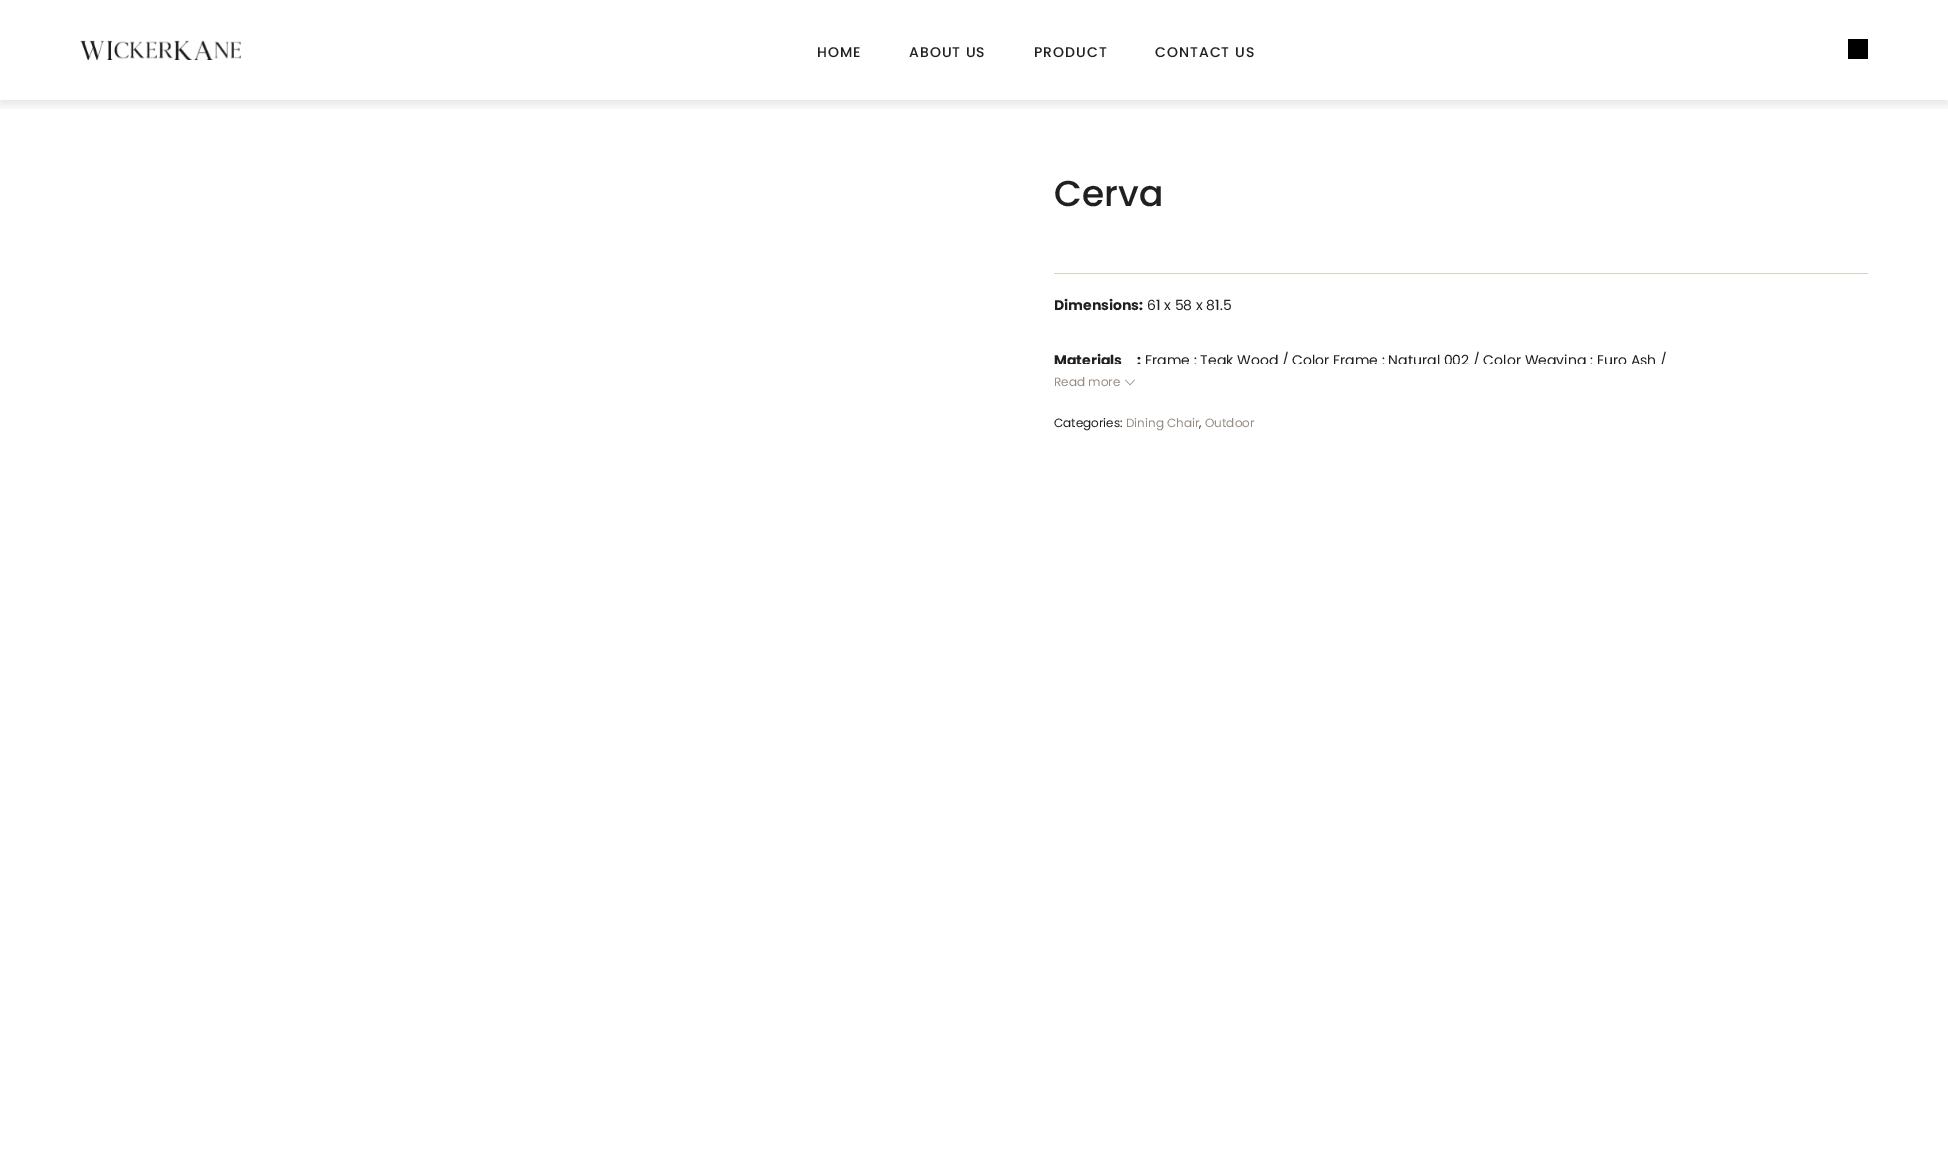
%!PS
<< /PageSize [1948 1151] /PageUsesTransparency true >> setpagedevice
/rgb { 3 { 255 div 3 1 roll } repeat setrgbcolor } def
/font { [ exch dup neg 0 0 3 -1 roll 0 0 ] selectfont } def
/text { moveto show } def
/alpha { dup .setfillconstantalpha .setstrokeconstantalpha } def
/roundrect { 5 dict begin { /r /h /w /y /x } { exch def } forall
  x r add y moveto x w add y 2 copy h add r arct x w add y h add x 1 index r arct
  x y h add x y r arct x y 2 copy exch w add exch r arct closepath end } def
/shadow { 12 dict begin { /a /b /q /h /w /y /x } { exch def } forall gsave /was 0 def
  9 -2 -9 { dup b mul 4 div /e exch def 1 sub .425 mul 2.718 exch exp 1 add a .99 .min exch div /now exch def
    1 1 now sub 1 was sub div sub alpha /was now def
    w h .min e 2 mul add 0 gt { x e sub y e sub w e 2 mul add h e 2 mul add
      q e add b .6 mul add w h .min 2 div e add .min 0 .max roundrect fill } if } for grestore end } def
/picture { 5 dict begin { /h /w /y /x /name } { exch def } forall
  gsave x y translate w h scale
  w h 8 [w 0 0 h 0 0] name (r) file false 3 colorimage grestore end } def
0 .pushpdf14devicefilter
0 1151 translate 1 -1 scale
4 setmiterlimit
255 255 255 rgb
0 0 1948 1151 rectfill
gsave
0 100 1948 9 rectclip
0 0 0 rgb
0 5 1948 100 0 5 0.1 shadow
grestore
(img_01.rgb) 80 40 161 20 picture
0 0 0 rgb
1848 39 20 20 rectfill
214 210 196 rgb
1054 273 814 1 rectfill
(img_02.rgb) 1125 379 10 7 picture
/Poppins-Medium 14 font
32 32 32 rgb
817 57 moveto 1 0 (HOME) ashow
909 57 moveto 1 0 (ABOUT US) ashow
1034 57 moveto 1 0 (PRODUCT) ashow
1155 57 moveto 1 0 (CONTACT US) ashow
/Poppins-Medium 36 font
(Cerva) 1054 206 text
/Poppins-Bold 14 font
(Dimensions:) 1054 310 text
/Poppins-Regular 14 font
(61 x 58 x 81.5) 1147 310 text
gsave
1054 294 620 70 rectclip
/Poppins-Bold 14 font
(Materials     :) 1054 365 text
/Poppins-Regular 14 font
(Frame : Teak Wood / Color Frame : Natural 002 / Color Weaving : Euro Ash /) 1145 365 text
grestore
/Poppins-Regular 12 font
150 140 131 rgb
(Read more) 1054 386 text
32 32 32 rgb
(Categories:) 1054 427 text
150 140 131 rgb
(Dining Chair) 1126 427 text
32 32 32 rgb
(,) 1199 427 text
150 140 131 rgb
(Outdoor) 1205 427 text
.poppdf14devicefilter showpage
